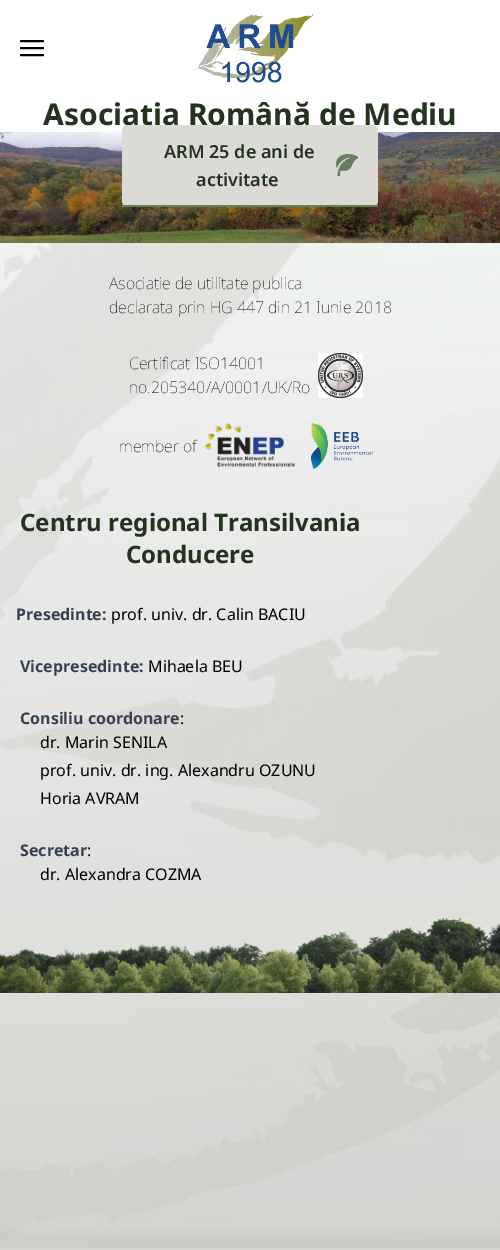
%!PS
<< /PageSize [500 1250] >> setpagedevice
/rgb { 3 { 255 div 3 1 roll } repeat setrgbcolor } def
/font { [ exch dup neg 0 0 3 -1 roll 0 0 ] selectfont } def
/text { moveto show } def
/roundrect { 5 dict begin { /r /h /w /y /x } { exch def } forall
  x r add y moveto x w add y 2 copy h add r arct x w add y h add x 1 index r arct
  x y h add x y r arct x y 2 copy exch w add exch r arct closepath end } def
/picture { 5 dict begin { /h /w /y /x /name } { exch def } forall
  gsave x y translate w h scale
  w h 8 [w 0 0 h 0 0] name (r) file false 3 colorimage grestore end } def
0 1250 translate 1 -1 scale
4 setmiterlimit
255 255 255 rgb
0 0 500 1250 rectfill
(img_01.rgb) 0 243 500 1007 picture
0 0 0 rgb
2 setlinewidth
1 setlinecap
1 setlinejoin
21 41 moveto 22 0 rlineto 21 48 moveto 22 0 rlineto 21 55 moveto 22 0 rlineto stroke
(img_02.rgb) 193 14 121 69 picture
(img_03.rgb) 0 132 500 111 picture
(img_05.rgb) 318 353 45 45 picture
(img_06.rgb) 205 423 90 45 picture
(img_07.rgb) 311 423 62 46 picture
(img_08.rgb) 0 917 500 76 picture
/NotoSans-Bold 30 font
35 51 30 rgb
(Asociația Română de Mediu) 43 125 text
219 218 214 rgb
122 125 256 82 6 roundrect fill
99 128 90 rgb
122 205 256 2 rectfill
/NotoSans-SemiBold 18 font
35 51 30 rgb
(ARM 25 de ani de) 164 158 text
(activitate) 196 186 text
(img_04.rgb) 336 154 22 22 picture
/NotoSans-Thin 16 font
0 0 0 rgb
(Asociatie de utilitate publica) 109 289 text
(declarata prin HG 447 din 21 Iunie 2018) 109 313 text
(Certificat ISO14001) 129 369 text
(no.205340/A/0001/UK/Ro) 129 393 text
(member of) 119 452 text
/NotoSans-Bold 24 font
35 51 30 rgb
(Centru regional Transilvania) 20 531 text
(Conducere) 126 563 text
/NotoSans-Bold 16 font
55 65 81 rgb
(Presedinte:) 16 620 text
/NotoSans-Regular 16 font
0 0 0 rgb
(prof. univ. dr. Calin BACIU) 111 620 text
/NotoSans-Bold 16 font
55 65 81 rgb
(Vicepresedinte:) 20 672 text
/NotoSans-Regular 16 font
0 0 0 rgb
(Mihaela BEU) 148 672 text
/NotoSans-Bold 16 font
55 65 81 rgb
(Consiliu coordonare) 20 724 text
/NotoSans-Regular 16 font
0 0 0 rgb
(:) 180 724 text
(dr. Marin SENILA) 40 748 text
(prof. univ. dr. ing. Alexandru OZUNU) 40 776 text
(Horia AVRAM) 40 804 text
/NotoSans-Bold 16 font
55 65 81 rgb
(Secretar) 20 856 text
/NotoSans-Regular 16 font
0 0 0 rgb
(:) 87 856 text
(dr. Alexandra COZMA) 40 880 text
showpage
